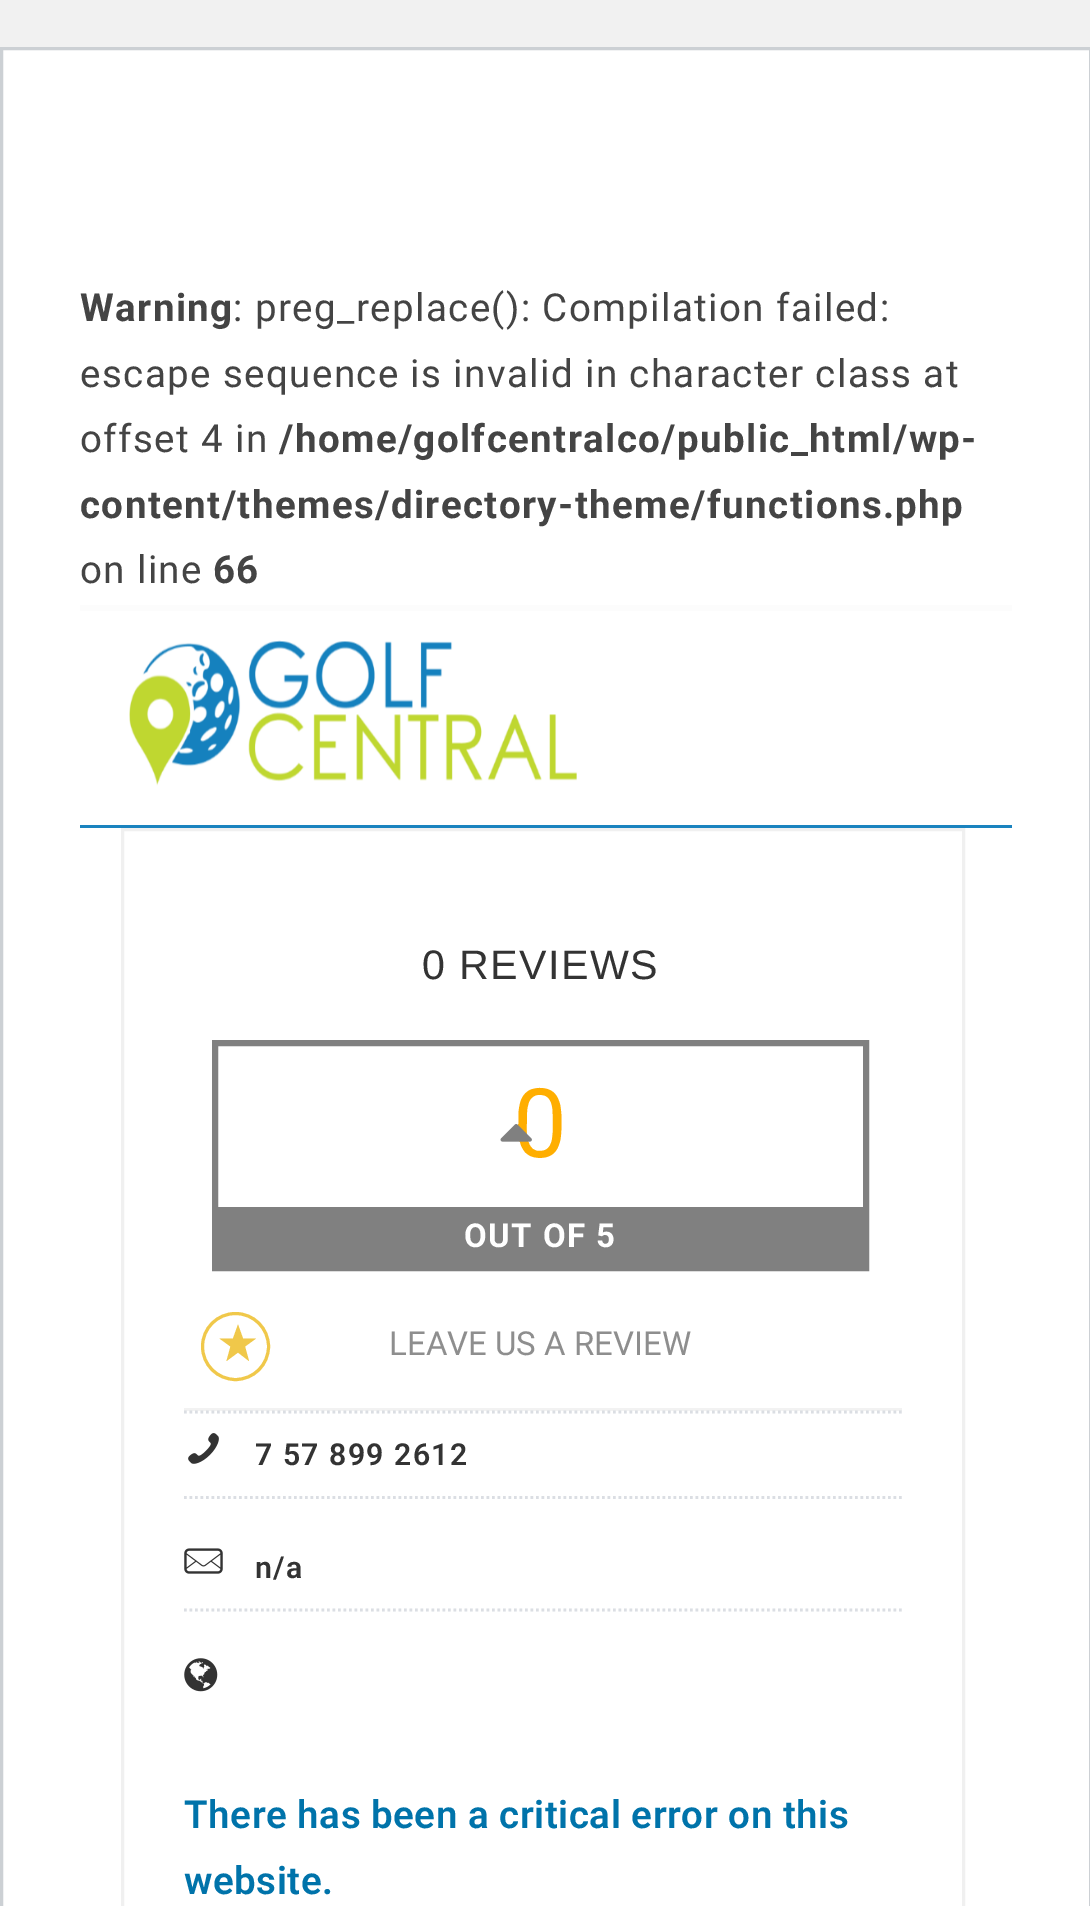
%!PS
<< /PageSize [1090 1906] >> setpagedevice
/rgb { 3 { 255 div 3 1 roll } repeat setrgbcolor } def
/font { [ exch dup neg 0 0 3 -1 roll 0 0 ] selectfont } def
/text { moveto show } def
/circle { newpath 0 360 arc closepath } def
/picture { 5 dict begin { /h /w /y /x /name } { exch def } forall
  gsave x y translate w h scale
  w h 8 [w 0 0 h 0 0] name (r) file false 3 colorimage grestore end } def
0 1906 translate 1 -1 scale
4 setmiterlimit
241 241 241 rgb
0 0 1090 1906 rectfill
255 255 255 rgb
1.5 48.5 moveto 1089 0 rlineto 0 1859 rlineto -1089 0 rlineto closepath gsave fill grestore
204 208 212 rgb
3 setlinewidth
stroke
252 252 252 rgb
80 605 932 6 rectfill
26 131 191 rgb
80 825 932 3 rectfill
(img_01.rgb) 129 640 448 146 picture
240 240 240 rgb
122.5 829.5 841 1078 rectstroke
242 242 242 rgb
184 1408 718 3 rectfill
128 128 128 rgb
6 setlinewidth
215 1043 651 225 rectstroke
218 1207 645 58 rectfill
240 200 74 rgb
3 setlinewidth
235.5 1346.5 33 circle stroke
238 1324.5 moveto 5 14 rlineto 13 0 rlineto -11 8 rlineto 4 14.5 rlineto -11 -8.5 rlineto -11.5 8.5 rlineto 4 -14.5 rlineto -11 -8 rlineto 13.5 0 rlineto closepath fill
219 222 227 rgb
2.8 setlinewidth
[2.75 2.75] 0 setdash
184 1412 moveto 718 0 rlineto stroke
184 1497.5 moveto 718 0 rlineto stroke
(img_03.rgb) 188 1433 31 31 picture
184 1610 moveto 718 0 rlineto stroke
(img_04.rgb) 184 1548 39 26 picture
(img_05.rgb) 184 1658 34 34 picture
/Roboto-Bold 38.5 font
68 68 68 rgb
80 321 moveto 1.4 0 (Warning) ashow
/Roboto-Regular 38.5 font
233 321 moveto 1.4 0 (: preg_replace\(\): Compilation failed:) ashow
80 387 moveto 1.4 0 (escape sequence is invalid in character class at) ashow
80 452 moveto 1.4 0 (offset 4 in) ashow
/Roboto-Bold 38.5 font
279 452 moveto 1.4 0 (/home/golfcentralco/public_html/wp-) ashow
80 518 moveto 1.4 0 (content/themes/directory-theme/functions.php) ashow
/Roboto-Regular 38.5 font
80 583 moveto 1.4 0 (on line) ashow
/Roboto-Bold 38.5 font
213 583 moveto 1.4 0 (66) ashow
/LiberationSans-Regular 41.25 font
51 51 51 rgb
422 979 moveto 1.4 0 (0 REVIEWS) ashow
/Roboto-Regular 96 font
255 174 0 rgb
513 1157 moveto 1.4 0 (0) ashow
(img_02.rgb) 500 1124 32 18 picture
/Roboto-Bold 33 font
255 255 255 rgb
464 1247 moveto 1.4 0 (OUT OF 5) ashow
/Roboto-Regular 33 font
142 142 142 rgb
(LEAVE US A REVIEW) 389 1355 text
/Roboto-SemiBold 30.25 font
51 51 51 rgb
255 1465 moveto 1.4 0 (7 57 899 2612) ashow
255 1578 moveto 1.4 0 (n/a) ashow
/Roboto-SemiBold 38.5 font
0 115 170 rgb
184 1828 moveto 0.55 0 (There has been a critical error on this) ashow
184 1894 moveto 0.55 0 (website.) ashow
showpage
